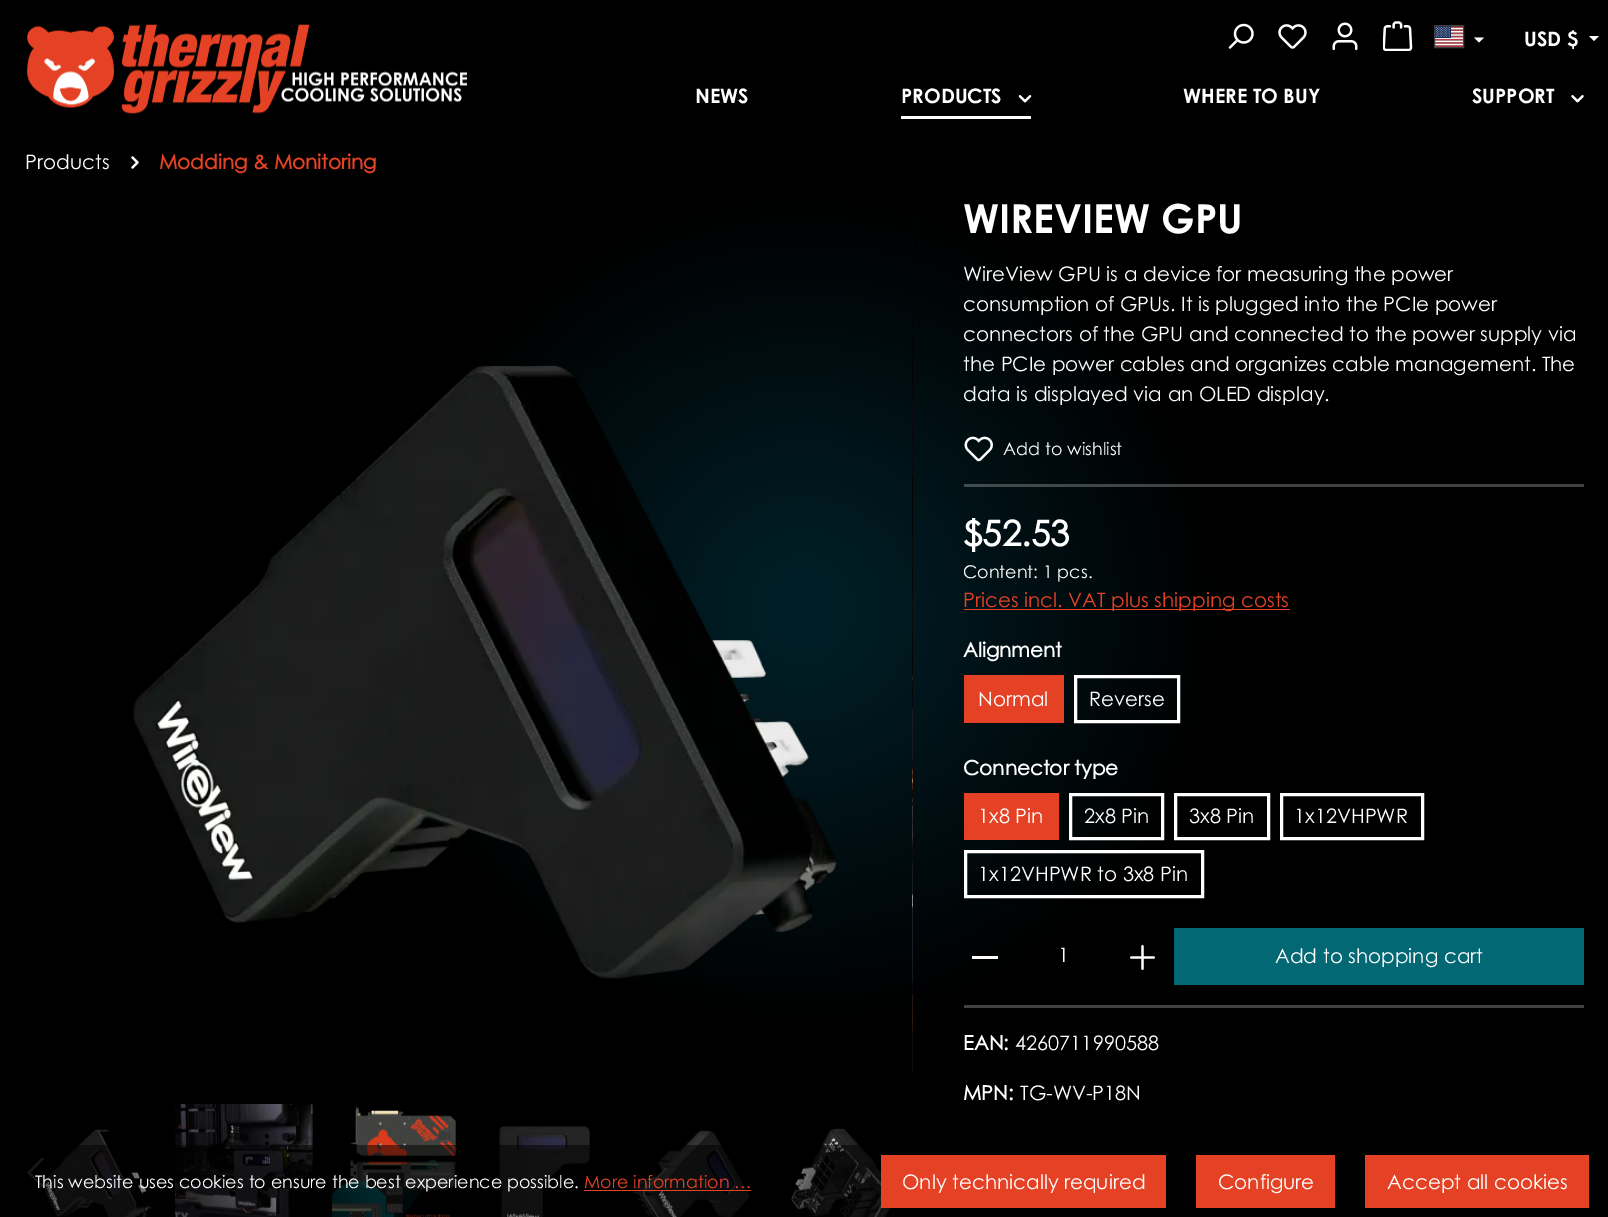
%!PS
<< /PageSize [1608 1217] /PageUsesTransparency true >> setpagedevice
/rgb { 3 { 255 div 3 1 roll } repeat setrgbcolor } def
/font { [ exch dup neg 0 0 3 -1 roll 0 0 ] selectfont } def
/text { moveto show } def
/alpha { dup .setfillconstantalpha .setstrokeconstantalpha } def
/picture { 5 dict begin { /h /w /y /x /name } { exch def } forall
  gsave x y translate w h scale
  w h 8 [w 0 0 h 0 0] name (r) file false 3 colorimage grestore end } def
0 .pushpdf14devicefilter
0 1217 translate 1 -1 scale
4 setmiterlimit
255 255 255 rgb
0 0 1608 1217 rectfill
gsave 0 0 moveto 1608 0 rlineto 0 1217 rlineto -1608 0 rlineto closepath clip newpath 804 609 translate 1009 1009 scale
<< /ShadingType 3 /ColorSpace /DeviceRGB /Coords [0 0 0 0 0 1] /Extend [true true] /Function << /FunctionType 3 /Domain [0 1] /Functions [<< /FunctionType 2 /Domain [0 1] /C0 [0 0.118 0.149] /C1 [0 0.118 0.149] /N 1 >> << /FunctionType 2 /Domain [0 1] /C0 [0 0.118 0.149] /C1 [0 0 0] /N 1 >> << /FunctionType 2 /Domain [0 1] /C0 [0 0 0] /C1 [0 0 0] /N 1 >>] /Bounds [0.03 0.42] /Encode [0 1 0 1 0 1] >> >> shfill grestore
gsave 964 484 moveto 620 0 rlineto 0 3 rlineto -620 0 rlineto closepath clip newpath 804 609 translate 1009 1009 scale
<< /ShadingType 3 /ColorSpace /DeviceRGB /Coords [0 0 0 0 0 1] /Extend [true true] /Function << /FunctionType 3 /Domain [0 1] /Functions [<< /FunctionType 2 /Domain [0 1] /C0 [0.251 0.337 0.361] /C1 [0.251 0.337 0.361] /N 1 >> << /FunctionType 2 /Domain [0 1] /C0 [0.251 0.337 0.361] /C1 [0.251 0.251 0.251] /N 1 >> << /FunctionType 2 /Domain [0 1] /C0 [0.251 0.251 0.251] /C1 [0.251 0.251 0.251] /N 1 >>] /Bounds [0.03 0.42] /Encode [0 1 0 1 0 1] >> >> shfill grestore
(img_01.rgb) 27 24 440 90 picture
(img_02.rgb) 1228 23 26 26 picture
(img_03.rgb) 1278 24 29 25 picture
(img_04.rgb) 1332 22 26 29 picture
(img_05.rgb) 1383 21 30 30 picture
(img_06.rgb) 1435 26 28 21 picture
64 64 64 rgb
1434.5 25.5 29 22 rectstroke
255 255 255 rgb
1474 37.5 moveto 10 0 rlineto -5 5 rlineto closepath fill
1589 36 moveto 10 0 rlineto -5 5 rlineto closepath fill
901 116 130 3 rectfill
(img_07.rgb) 1018 95 14 8 picture
(img_08.rgb) 1571 95 13 8 picture
(img_09.rgb) 131 156 8 13 picture
(img_10.rgb) 133 365 704 614 picture
(img_11.rgb) 912 212 1 862 picture
(img_13.rgb) 41 1129 110 88 picture
(img_12.rgb) 27 1158 17 30 picture
(img_14.rgb) 175 1104 138 113 picture
(img_15.rgb) 332 1106 124 111 picture
(img_16.rgb) 499 1126 91 91 picture
(img_17.rgb) 632 1130 117 87 picture
(img_18.rgb) 791 1128 100 89 picture
(img_19.rgb) 964 436 29 26 picture
229 66 37 rgb
964 609 326 1 rectfill
964 675 100 48 rectfill
255 255 255 rgb
3 setlinewidth
1075.5 676.5 103 45 rectstroke
229 66 37 rgb
964 793 95 47 rectfill
255 255 255 rgb
1070.5 794.5 92 44 rectstroke
1175.5 794.5 93 44 rectstroke
1281.5 794.5 141 44 rectstroke
965.5 851.5 237 45 rectstroke
972 956 26 3 rectfill
(img_20.rgb) 1130 945 25 25 picture
2 104 115 rgb
1174 928 410 57 rectfill
64 64 64 rgb
964 1005 620 3 rectfill
0.5 alpha
0 0 0 rgb
27 1145 864 72 rectfill
1 alpha
229 66 37 rgb
584 1190 167 1 rectfill
881 1155 285 53 rectfill
1196 1155 139 53 rectfill
1365 1155 224 53 rectfill
/CenturyGothic-Bold 20 font
255 255 255 rgb
(USD $) 1524 46 text
(NEWS) 695 103 text
(PRODUCTS) 901 103 text
(WHERE TO BUY) 1183 103 text
(SUPPORT) 1472 103 text
/CenturyGothic-Regular 20 font
(Products) 25 169 text
/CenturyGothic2-Bold 20 font
229 66 37 rgb
(Modding & Monitoring) 159 169 text
/CenturyGothic-Bold 40 font
255 255 255 rgb
(WIREVIEW GPU) 963 233 text
/CenturyGothic-Regular 20 font
(WireView GPU is a device for measuring the power) 963 281 text
(consumption of GPUs. It is plugged into the PCIe power) 963 311 text
(connectors of the GPU and connected to the power supply via) 963 341 text
(the PCIe power cables and organizes cable management. The) 963 371 text
(data is displayed via an OLED display.) 963 401 text
/CenturyGothic-Regular 17.5 font
(Add to wishlist) 1003 455 text
/CenturyGothic2-Bold 35 font
($52.53) 963 546 text
/CenturyGothic-Regular 17.5 font
(Content: 1 pcs.) 963 578 text
/CenturyGothic-Regular 20 font
229 66 37 rgb
(Prices incl. VAT plus shipping costs) 963 607 text
/CenturyGothic2-Bold 20 font
255 255 255 rgb
(Alignment) 963 657 text
/CenturyGothic-Regular 20 font
(Normal) 978 706 text
(Reverse) 1089 706 text
/CenturyGothic2-Bold 20 font
(Connector type) 963 775 text
/CenturyGothic-Regular 20 font
(1x8 Pin) 978 823 text
(2x8 Pin) 1084 823 text
(3x8 Pin) 1189 823 text
(1x12VHPWR) 1294 823 text
(1x12VHPWR to 3x8 Pin) 978 881 text
(1) 1058 962 text
(Add to shopping cart) 1275 963 text
/CenturyGothic2-Bold 20 font
(EAN:) 963 1050 text
/CenturyGothic-Regular 20 font
(4260711990588) 1015 1050 text
/CenturyGothic2-Bold 20 font
(MPN:) 963 1100 text
/CenturyGothic-Regular 20 font
(TG-WV-P18N) 1020 1100 text
/CenturyGothic-Regular 17.5 font
(This website uses cookies to ensure the best experience possible.) 35 1188 text
229 66 37 rgb
(More information …) 584 1188 text
/CenturyGothic-Regular 20 font
255 255 255 rgb
(Only technically required) 902 1189 text
(Configure) 1218 1189 text
(Accept all cookies) 1387 1189 text
.poppdf14devicefilter showpage
